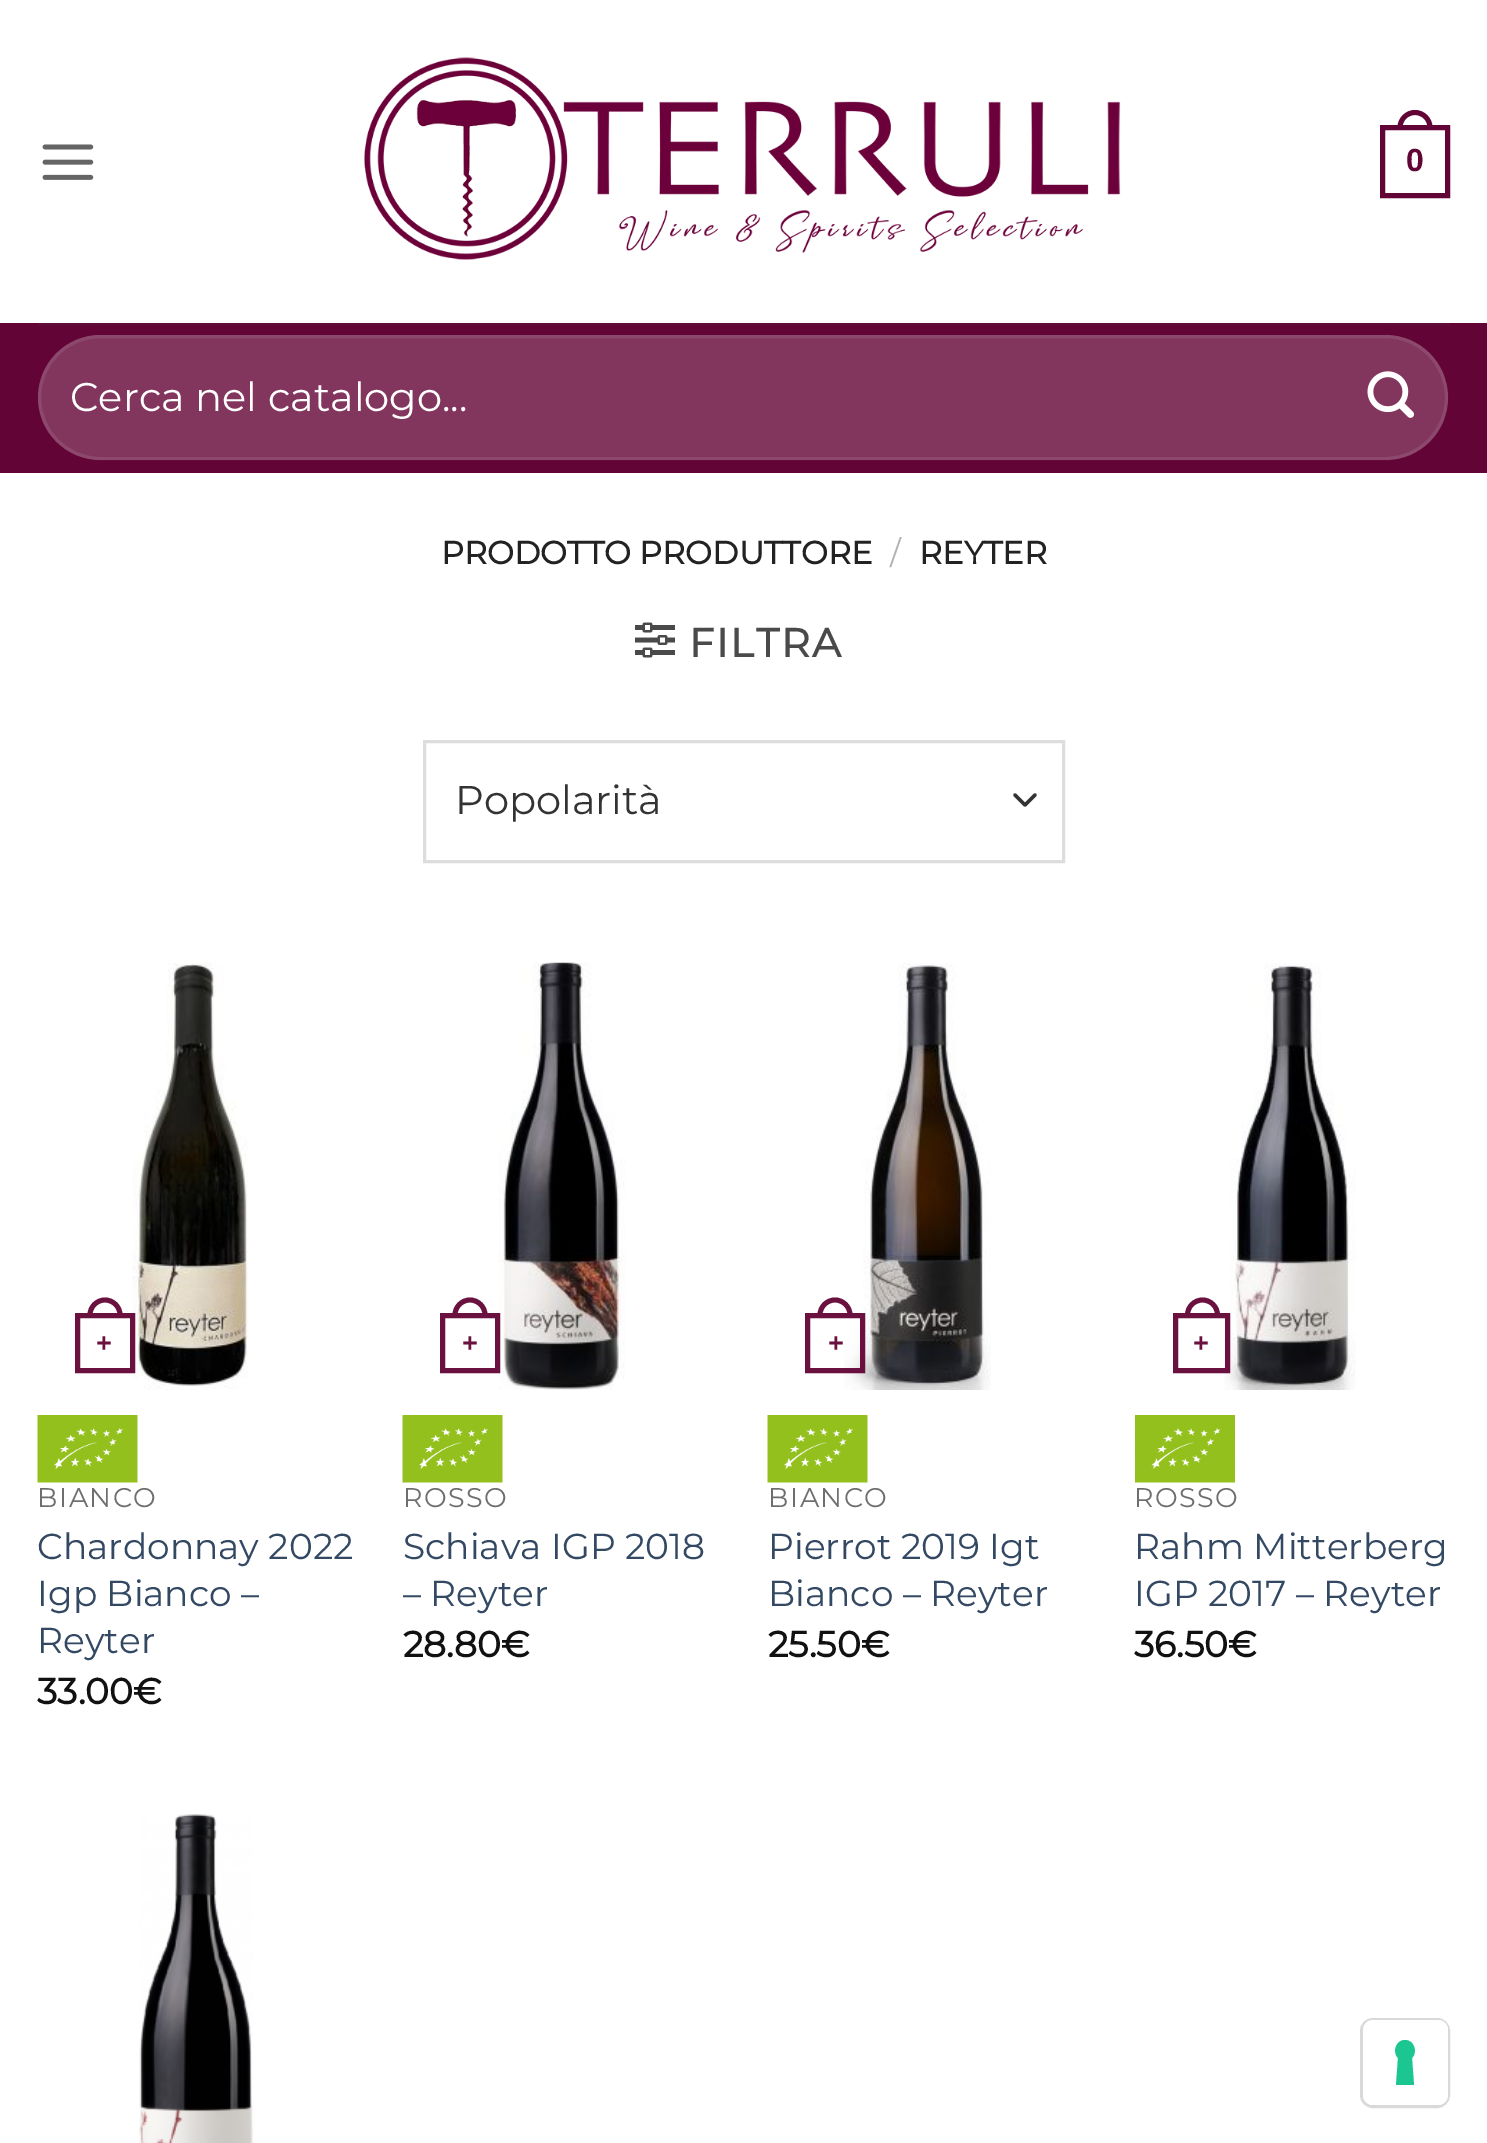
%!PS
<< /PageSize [1487 2143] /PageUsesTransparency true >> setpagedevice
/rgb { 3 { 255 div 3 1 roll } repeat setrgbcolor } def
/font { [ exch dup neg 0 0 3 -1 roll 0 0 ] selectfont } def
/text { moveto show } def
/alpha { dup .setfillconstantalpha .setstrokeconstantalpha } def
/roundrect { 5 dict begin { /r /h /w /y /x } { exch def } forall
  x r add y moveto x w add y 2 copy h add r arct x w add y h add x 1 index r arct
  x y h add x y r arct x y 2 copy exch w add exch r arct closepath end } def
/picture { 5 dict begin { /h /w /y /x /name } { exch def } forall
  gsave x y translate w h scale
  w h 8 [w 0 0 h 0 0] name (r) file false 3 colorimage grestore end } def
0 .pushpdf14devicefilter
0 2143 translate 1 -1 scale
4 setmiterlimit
255 255 255 rgb
0 0 1487 2143 rectfill
(img_01.rgb) 42 144 52 36 picture
(img_02.rgb) 364 57 757 203 picture
99 4 54 rgb
5 setlinewidth
1382.5 127.5 65 68 rectstroke
1415 110 moveto 9.5 0 17.5 8 17.5 17.5 rcurveto 0 2.5 rlineto -35 0 rlineto 0 -2.5 rlineto 0 -9.5 8 -17.5 17.5 -17.5 rcurveto closepath 1415 115 moveto 7 0 12.5 5.5 12.5 12.5 rcurveto 0 2.5 rlineto -25 0 rlineto 0 -2.5 rlineto 0 -7 5.5 -12.5 12.5 -12.5 rcurveto closepath eofill
0 323 1487 150 rectfill
97 11 56 rgb
38 323 1412 3 rectfill
130 54 94 rgb
38 335 1410 125 62.5 roundrect fill
0.09 alpha
255 255 255 rgb
3 setlinewidth
39.5 336.5 1407 122 61 roundrect stroke
1 alpha
(img_03.rgb) 1367 371 47 47 picture
(img_04.rgb) 635 622 40 36 picture
51 51 51 rgb
3.3 setlinewidth
1 setlinecap
1 setlinejoin
1015 795 moveto 10 10 rlineto 10 -10 rlineto stroke
221 221 221 rgb
3 setlinewidth
0 setlinecap
0 setlinejoin
424.5 741.5 639 120 rectstroke
(img_05.rgb) 132 963 116 427 picture
0.95 alpha
99 4 54 rgb
5 setlinewidth
77.5 1315.5 55 55 rectstroke
1 alpha
107 17 64 rgb
105 1297.5 moveto 9.5 0 17.5 8 17.5 17.5 rcurveto 0 2.5 rlineto -35 0 rlineto 0 -2.5 rlineto 0 -9.5 8 -17.5 17.5 -17.5 rcurveto closepath 105 1302.5 moveto 7 0 12.5 5.5 12.5 12.5 rcurveto 0 2.5 rlineto -25 0 rlineto 0 -2.5 rlineto 0 -7 5.5 -12.5 12.5 -12.5 rcurveto closepath eofill
(img_06.rgb) 37 1415 101 68 picture
(img_07.rgb) 498 962 128 428 picture
0.95 alpha
99 4 54 rgb
442.5 1315.5 55 55 rectstroke
1 alpha
107 17 64 rgb
470 1297.5 moveto 9.5 0 17.5 8 17.5 17.5 rcurveto 0 2.5 rlineto -35 0 rlineto 0 -2.5 rlineto 0 -9.5 8 -17.5 17.5 -17.5 rcurveto closepath 470 1302.5 moveto 7 0 12.5 5.5 12.5 12.5 rcurveto 0 2.5 rlineto -25 0 rlineto 0 -2.5 rlineto 0 -7 5.5 -12.5 12.5 -12.5 rcurveto closepath eofill
(img_06.rgb) 402 1415 101 68 picture
(img_08.rgb) 844 963 147 427 picture
0.95 alpha
99 4 54 rgb
807.5 1315.5 55 55 rectstroke
1 alpha
107 17 64 rgb
835 1297.5 moveto 9.5 0 17.5 8 17.5 17.5 rcurveto 0 2.5 rlineto -35 0 rlineto 0 -2.5 rlineto 0 -9.5 8 -17.5 17.5 -17.5 rcurveto closepath 835 1302.5 moveto 7 0 12.5 5.5 12.5 12.5 rcurveto 0 2.5 rlineto -25 0 rlineto 0 -2.5 rlineto 0 -7 5.5 -12.5 12.5 -12.5 rcurveto closepath eofill
(img_06.rgb) 767 1415 101 68 picture
(img_09.rgb) 1224 963 132 427 picture
0.95 alpha
99 4 54 rgb
1175.5 1315.5 52 55 rectstroke
1 alpha
107 17 64 rgb
1202.5 1297.5 moveto 9.5 0 17.5 8 17.5 17.5 rcurveto 0 2.5 rlineto -35 0 rlineto 0 -2.5 rlineto 0 -9.5 8 -17.5 17.5 -17.5 rcurveto closepath 1202.5 1302.5 moveto 7 0 12.5 5.5 12.5 12.5 rcurveto 0 2.5 rlineto -25 0 rlineto 0 -2.5 rlineto 0 -7 5.5 -12.5 12.5 -12.5 rcurveto closepath eofill
(img_10.rgb) 1135 1415 100 68 picture
(img_11.rgb) 139 1814 115 329 picture
217 217 217 rgb
3 setlinewidth
1361.5 2019.5 87 87 11.5 roundrect stroke
255 255 255 rgb
1363 2020 85 85 10 roundrect fill
28 198 145 rgb
1405 2040 moveto 9 0 13 12 7 18 rcurveto 2 27 rlineto -18 0 rlineto 2 -27 rlineto -6 -6 -2 -18 7 -18 rcurveto closepath eofill
/LiberationSans-Bold 32 font
99 4 54 rgb
(0) 1406 171 text
/Montserrat-Thin 40 font
255 255 255 rgb
(Cerca nel catalogo...) 70 411 text
/Montserrat-Bold 32 font
34 34 34 rgb
(PRODOTTO PRODUTTORE) 441 564 text
/Montserrat-Thin 32 font
178 178 178 rgb
(/) 890 564 text
/Montserrat-Bold 32 font
34 34 34 rgb
(REYTER) 919 564 text
/Montserrat-Bold 40 font
74 74 74 rgb
689 657 moveto 2 0 (FILTRA) ashow
/Montserrat-Thin 40 font
51 51 51 rgb
(Popolarità) 455 814 text
/LiberationSans-Bold 27 font
107 17 64 rgb
(+) 96 1352 text
/Montserrat-Thin 27 font
110 110 110 rgb
37 1507 moveto 1.5 0 (BIANCO) ashow
/Montserrat-Thin 36 font
51 72 98 rgb
(Chardonnay 2022) 37 1559 text
(Igp Bianco –) 37 1606 text
(Reyter) 37 1653 text
/Montserrat-Bold 36 font
17 17 17 rgb
(33.00€) 37 1704 text
/LiberationSans-Bold 27 font
107 17 64 rgb
(+) 462 1352 text
/Montserrat-Thin 27 font
110 110 110 rgb
403 1507 moveto 1.5 0 (ROSSO) ashow
/Montserrat-Thin 36 font
51 72 98 rgb
(Schiava IGP 2018) 403 1559 text
(– Reyter) 403 1606 text
/Montserrat-Bold 36 font
17 17 17 rgb
(28.80€) 403 1657 text
/LiberationSans-Bold 27 font
107 17 64 rgb
(+) 828 1352 text
/Montserrat-Thin 27 font
110 110 110 rgb
768 1507 moveto 1.5 0 (BIANCO) ashow
/Montserrat-Thin 36 font
51 72 98 rgb
(Pierrot 2019 Igt) 768 1559 text
(Bianco – Reyter) 768 1606 text
/Montserrat-Bold 36 font
17 17 17 rgb
(25.50€) 768 1657 text
/LiberationSans-Bold 27 font
107 17 64 rgb
(+) 1193 1352 text
/Montserrat-Thin 27 font
110 110 110 rgb
1134 1507 moveto 1.5 0 (ROSSO) ashow
/Montserrat-Thin 36 font
51 72 98 rgb
(Rahm Mitterberg) 1134 1559 text
(IGP 2017 – Reyter) 1134 1606 text
/Montserrat-Bold 36 font
17 17 17 rgb
(36.50€) 1134 1657 text
.poppdf14devicefilter showpage
